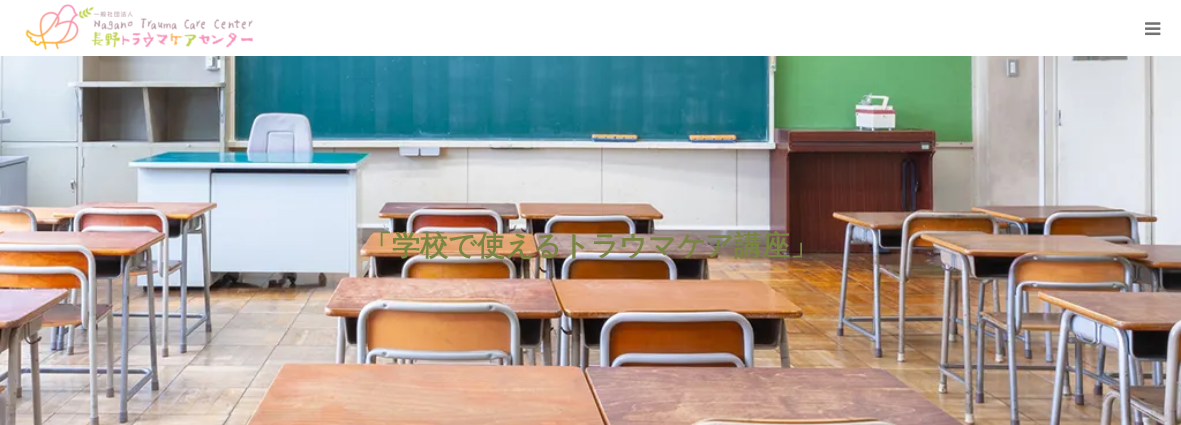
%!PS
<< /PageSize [1181 425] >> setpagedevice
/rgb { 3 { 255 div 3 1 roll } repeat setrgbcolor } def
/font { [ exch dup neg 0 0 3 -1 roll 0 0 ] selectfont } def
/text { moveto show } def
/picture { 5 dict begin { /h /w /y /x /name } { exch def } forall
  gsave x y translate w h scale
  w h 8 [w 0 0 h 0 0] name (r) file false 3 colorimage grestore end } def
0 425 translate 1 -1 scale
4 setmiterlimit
255 255 255 rgb
0 0 1181 425 rectfill
(img_01.rgb) 25 4 228 46 picture
(img_02.rgb) 1145 22 16 14 picture
(img_03.rgb) 0 56 1181 369 picture
/WenQuanYiZenHei-Bold 28 font
121 134 67 rgb
(「学校で使えるトラウマケア講座」) 364 255 text
showpage
